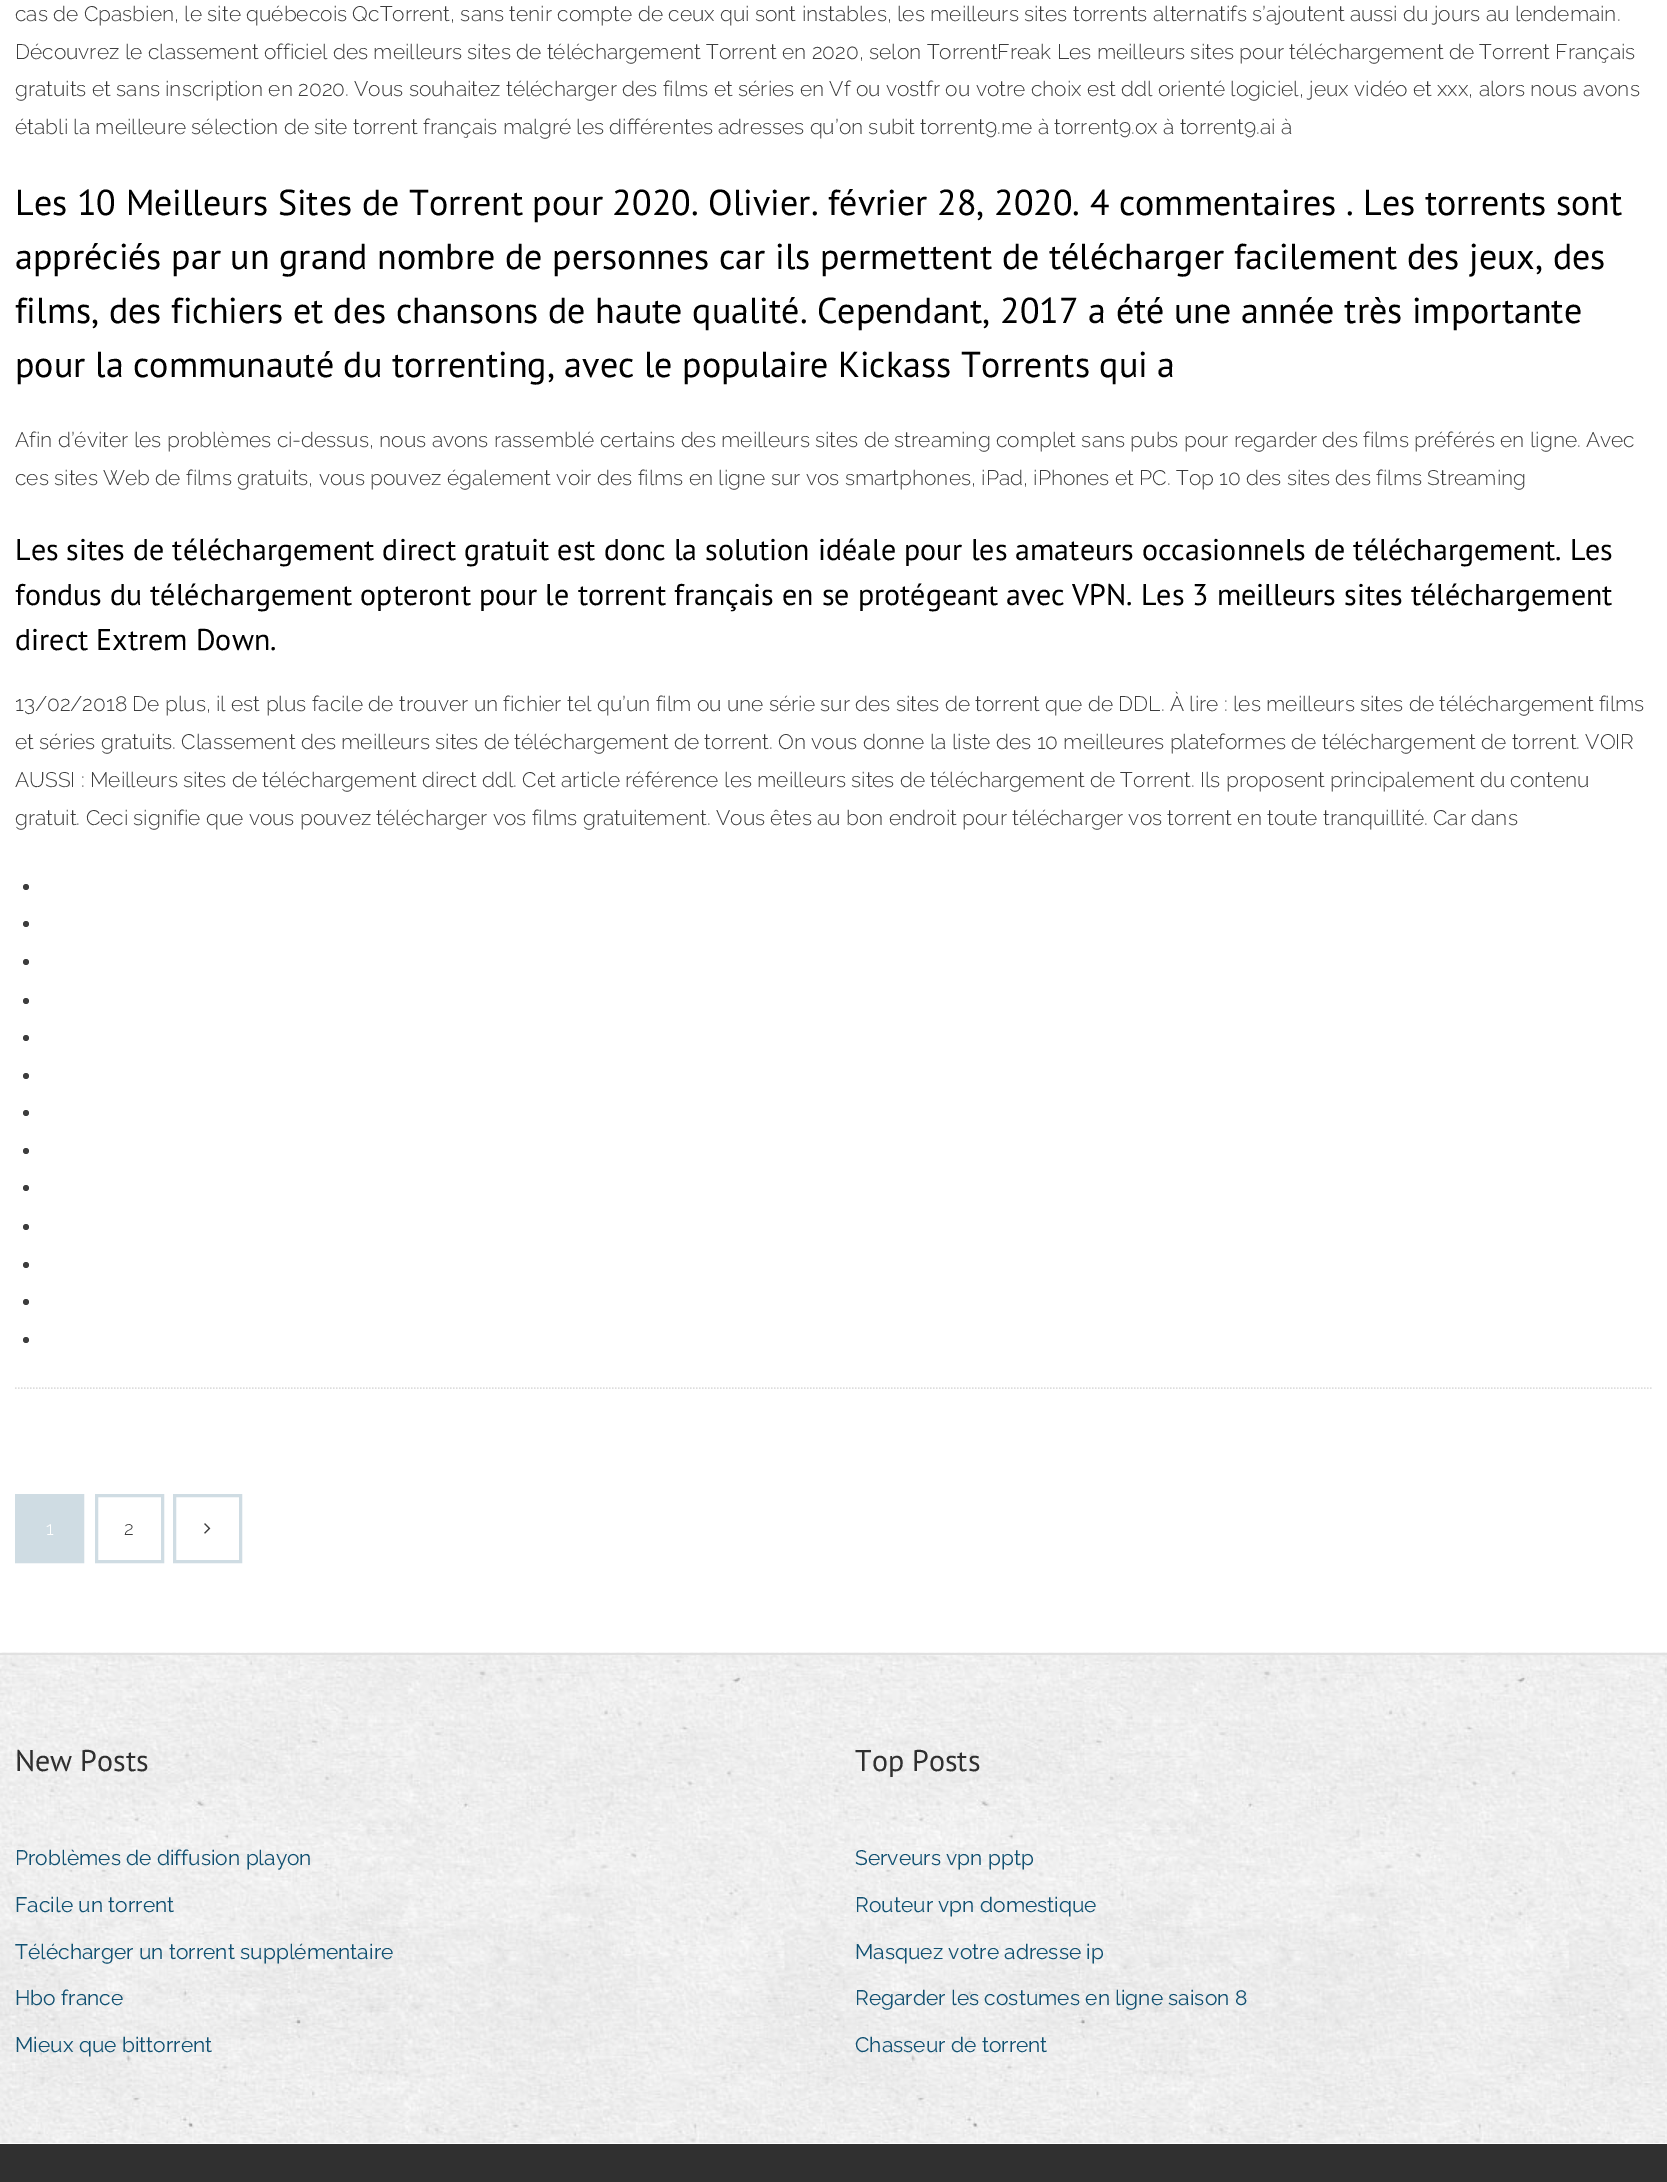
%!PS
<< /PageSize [1667 2182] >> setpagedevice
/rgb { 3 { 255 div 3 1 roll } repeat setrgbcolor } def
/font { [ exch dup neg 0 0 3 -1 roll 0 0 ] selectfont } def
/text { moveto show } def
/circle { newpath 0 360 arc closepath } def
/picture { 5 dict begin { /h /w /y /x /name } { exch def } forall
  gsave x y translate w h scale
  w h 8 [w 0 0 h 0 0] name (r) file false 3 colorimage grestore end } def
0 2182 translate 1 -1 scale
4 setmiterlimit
255 255 255 rgb
0 0 1667 2182 rectfill
221 221 221 rgb
1.5 setlinewidth
[1.5 1.5] 0 setdash
15 1388 moveto 1638 0 rlineto stroke
61 61 61 rgb
26 887 3 circle fill
26 924 3 circle fill
26 962 3 circle fill
26 1001 3 circle fill
26 1038 3 circle fill
26 1076 3 circle fill
26 1113 3 circle fill
26 1151 3 circle fill
26 1188 3 circle fill
26 1227 3 circle fill
26 1265 3 circle fill
26 1302 3 circle fill
26 1340 3 circle fill
207 220 227 rgb
3 setlinewidth
[] 0 setdash
16.5 1495.5 66 66 rectstroke
18 1497 63 63 rectfill
96.5 1495.5 66 66 rectstroke
174.5 1495.5 66 66 rectstroke
(img_01.rgb) 204 1523 7 11 picture
(img_02.rgb) 0 1652 1667 491 picture
225 225 225 rgb
0 1653 1667 2 rectfill
48 48 48 rgb
0 2144 1667 38 rectfill
/Raleway-Light 21 font
61 61 61 rgb
(cas de Cpasbien, le site québecois QcTorrent, sans tenir compte de ceux qui sont instables, les meilleurs sites torrents alternatifs s’ajoutent aussi du jours au lendemain.) 15 21 text
(Découvrez le classement officiel des meilleurs sites de téléchargement Torrent en 2020, selon TorrentFreak Les meilleurs sites pour téléchargement de Torrent Français) 15 59 text
(gratuits et sans inscription en 2020. Vous souhaitez télécharger des films et séries en Vf ou vostfr ou votre choix est ddl orienté logiciel, jeux vidéo et xxx, alors nous avons) 15 96 text
(établi la meilleure sélection de site torrent français malgré les différentes adresses qu’on subit torrent9.me à torrent9.ox à torrent9.ai à) 15 134 text
/PTSans-Regular 36 font
0 0 0 rgb
(Les 10 Meilleurs Sites de Torrent pour 2020. Olivier. février 28, 2020. 4 commentaires . Les torrents sont) 15 215 text
(appréciés par un grand nombre de personnes car ils permettent de télécharger facilement des jeux, des) 15 269 text
(films, des fichiers et des chansons de haute qualité. Cependant, 2017 a été une année très importante) 15 323 text
(pour la communauté du torrenting, avec le populaire Kickass Torrents qui a) 15 377 text
/Raleway-Light 21 font
61 61 61 rgb
(Afin d’éviter les problèmes ci-dessus, nous avons rassemblé certains des meilleurs sites de streaming complet sans pubs pour regarder des films préférés en ligne. Avec) 15 447 text
(ces sites Web de films gratuits, vous pouvez également voir des films en ligne sur vos smartphones, iPad, iPhones et PC. Top 10 des sites des films Streaming) 15 485 text
/PTSans-Regular 30 font
0 0 0 rgb
(Les sites de téléchargement direct gratuit est donc la solution idéale pour les amateurs occasionnels de téléchargement. Les) 15 560 text
(fondus du téléchargement opteront pour le torrent français en se protégeant avec VPN. Les 3 meilleurs sites téléchargement) 15 605 text
(direct Extrem Down.) 15 650 text
/Raleway-Light 21 font
61 61 61 rgb
(13/02/2018 De plus, il est plus facile de trouver un fichier tel qu’un film ou une série sur des sites de torrent que de DDL. À lire : les meilleurs sites de téléchargement films) 15 711 text
(et séries gratuits. Classement des meilleurs sites de téléchargement de torrent. On vous donne la liste des 10 meilleures plateformes de téléchargement de torrent. VOIR) 15 749 text
(AUSSI : Meilleurs sites de téléchargement direct ddl. Cet article référence les meilleurs sites de téléchargement de Torrent. Ils proposent principalement du contenu) 15 787 text
(gratuit. Ceci signifie que vous pouvez télécharger vos films gratuitement. Vous êtes au bon endroit pour télécharger vos torrent en toute tranquillité. Car dans) 15 825 text
/Raleway-Light 19 font
255 255 255 rgb
(1) 46 1535 text
61 61 61 rgb
(2) 124 1535 text
/PTSans-Regular 30 font
47 47 47 rgb
(New Posts) 15 1771 text
/Raleway-Regular 21 font
17 81 114 rgb
(Problèmes de diffusion playon) 15 1865 text
(Facile un torrent) 15 1912 text
(Télécharger un torrent supplémentaire) 15 1959 text
(Hbo france) 15 2005 text
(Mieux que bittorrent) 15 2052 text
/PTSans-Regular 30 font
47 47 47 rgb
(Top Posts) 855 1771 text
/Raleway-Regular 21 font
17 81 114 rgb
(Serveurs vpn pptp) 855 1865 text
(Routeur vpn domestique) 855 1912 text
(Masquez votre adresse ip) 855 1959 text
(Regarder les costumes en ligne saison 8) 855 2005 text
(Chasseur de torrent) 855 2052 text
showpage
